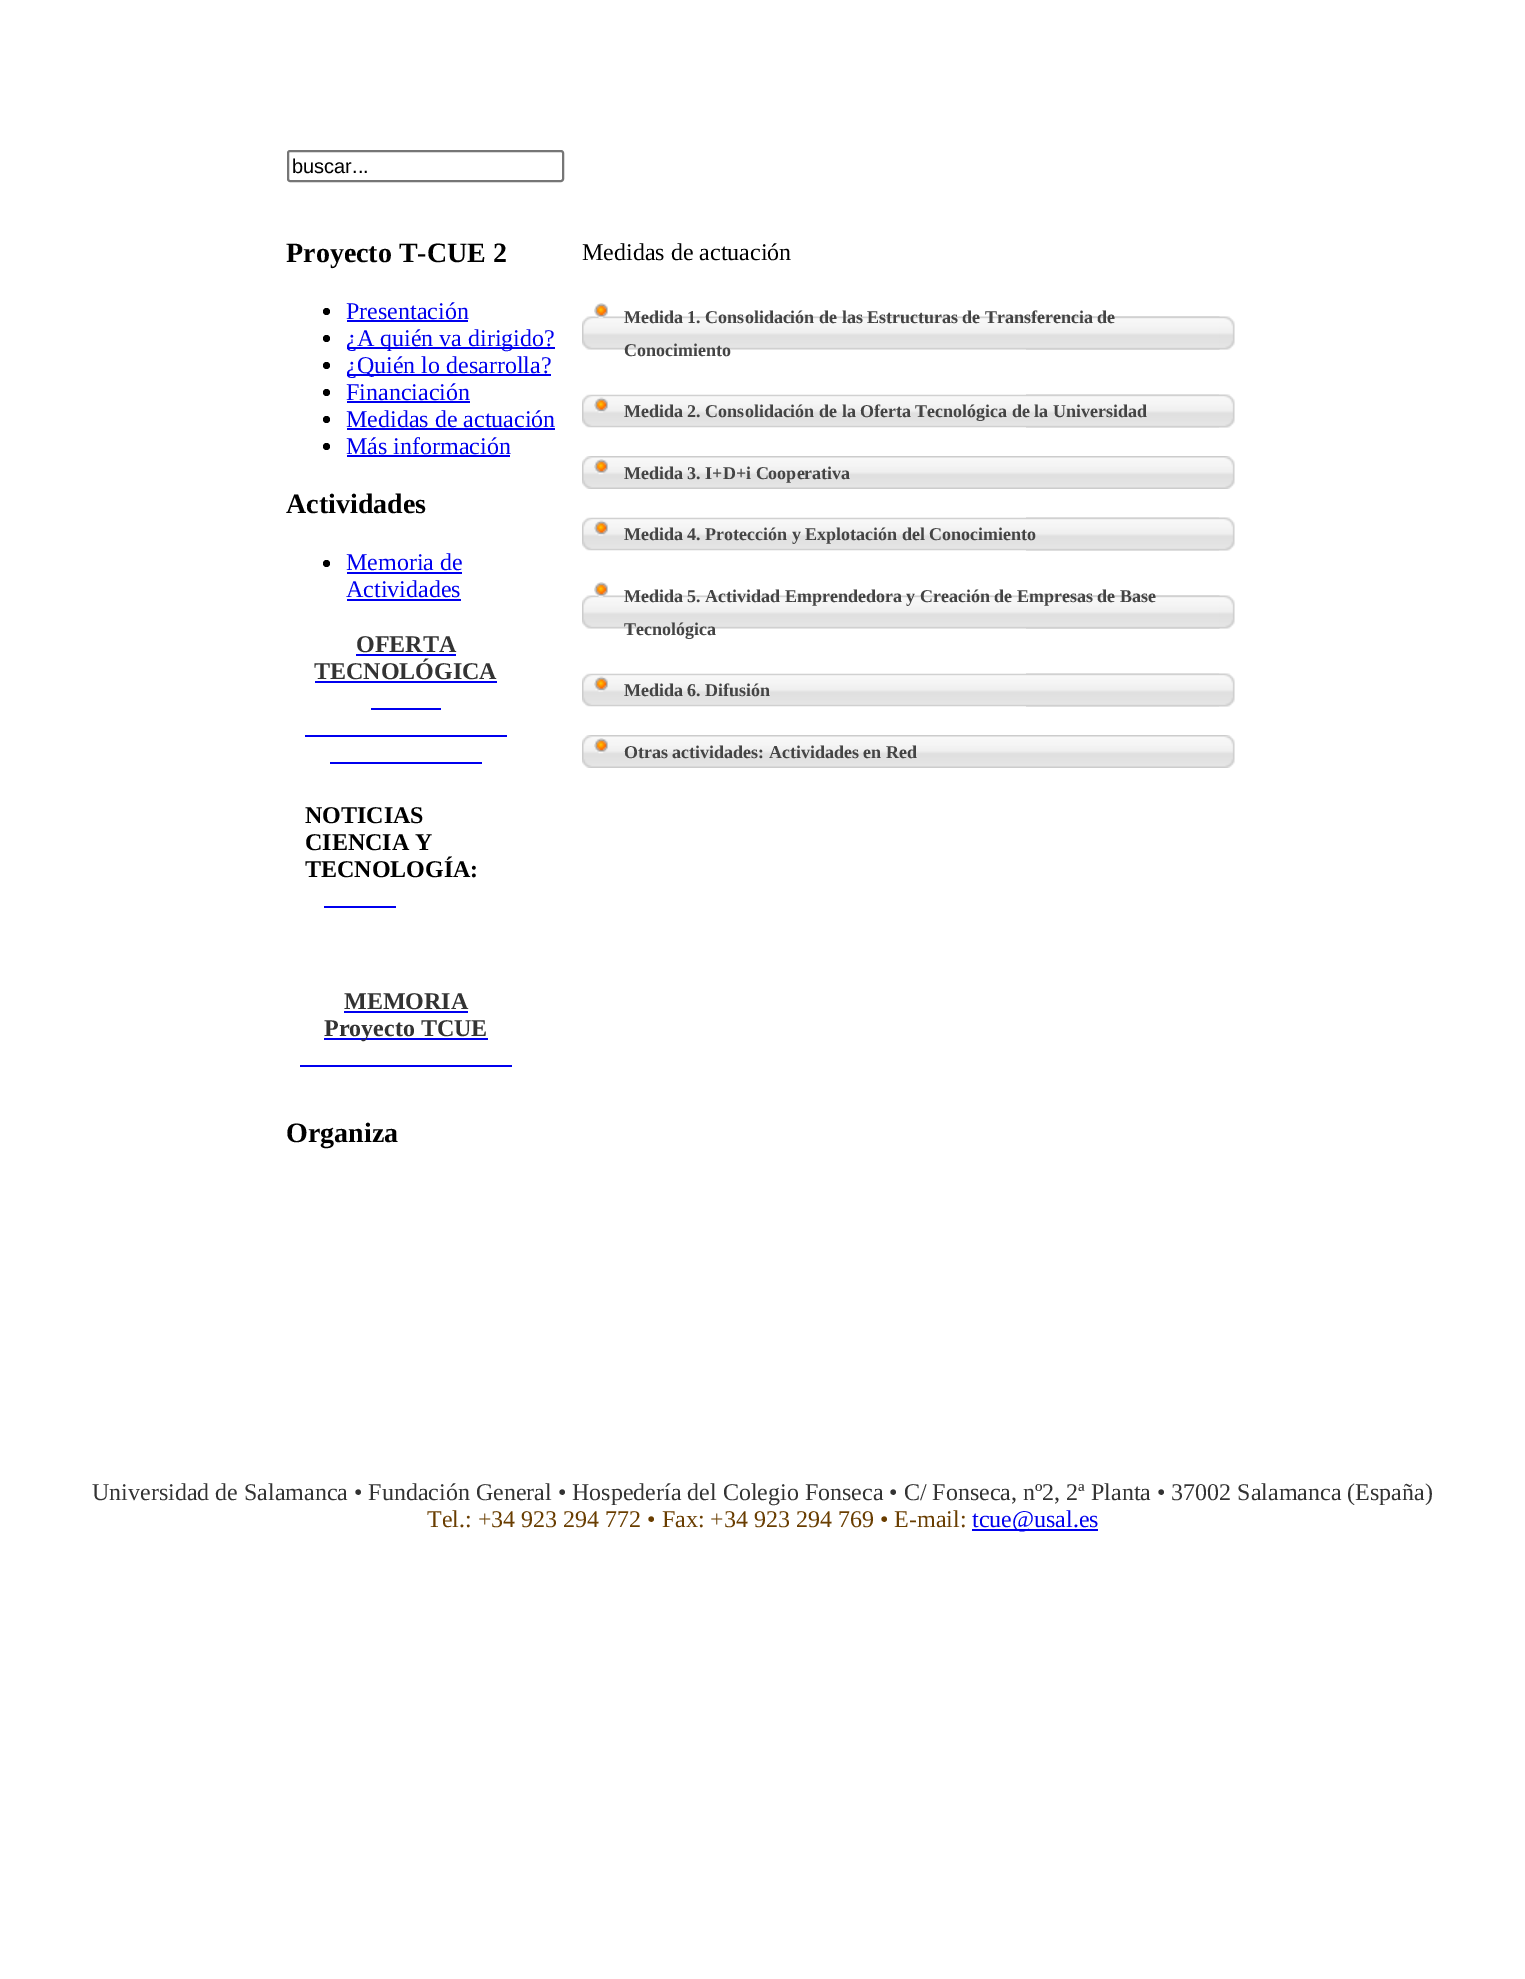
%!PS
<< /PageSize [1525 1979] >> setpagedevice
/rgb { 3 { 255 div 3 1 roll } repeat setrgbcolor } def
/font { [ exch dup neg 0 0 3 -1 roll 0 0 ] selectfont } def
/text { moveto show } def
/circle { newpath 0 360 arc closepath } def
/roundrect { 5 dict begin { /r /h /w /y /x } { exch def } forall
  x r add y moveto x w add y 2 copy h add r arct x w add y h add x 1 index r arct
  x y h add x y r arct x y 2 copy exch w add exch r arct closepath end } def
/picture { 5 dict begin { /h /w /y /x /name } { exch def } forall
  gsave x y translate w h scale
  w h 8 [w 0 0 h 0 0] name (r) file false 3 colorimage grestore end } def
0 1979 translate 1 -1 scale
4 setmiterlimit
255 255 255 rgb
0 0 1525 1979 rectfill
118 118 118 rgb
2 setlinewidth
288 151 275 30 2 roundrect stroke
0 0 0 rgb
326.5 311.5 3.5 circle fill
0 0 238 rgb
347 320 121 2 rectfill
0 0 0 rgb
326.5 338.5 3.5 circle fill
0 0 238 rgb
347 347 208 2 rectfill
0 0 0 rgb
326.5 365.5 3.5 circle fill
0 0 238 rgb
347 374 204 2 rectfill
0 0 0 rgb
326.5 392.5 3.5 circle fill
0 0 238 rgb
347 401 123 2 rectfill
0 0 0 rgb
326.5 419.5 3.5 circle fill
0 0 238 rgb
347 428 208 2 rectfill
0 0 0 rgb
326.5 446.5 3.5 circle fill
0 0 238 rgb
347 455 163 2 rectfill
0 0 0 rgb
326.5 563.5 3.5 circle fill
0 0 238 rgb
347 572 115 2 rectfill
347 599 114 2 rectfill
356 654 100 2 rectfill
315 681 182 2 rectfill
371 708 70 2 rectfill
305 735 202 2 rectfill
330 762 152 2 rectfill
324 906 72 2 rectfill
344 1011 124 2 rectfill
324 1038 164 2 rectfill
300 1065 212 2 rectfill
(img_01.rgb) 1026 316 209 34 picture
(img_02.rgb) 582 316 638 34 picture
(img_03.rgb) 594 303 14 15 picture
(img_01.rgb) 1026 394 209 34 picture
(img_04.rgb) 582 394 637 34 picture
(img_05.rgb) 594 397 14 16 picture
(img_06.rgb) 1026 456 209 33 picture
(img_07.rgb) 582 456 444 33 picture
(img_08.rgb) 594 459 14 16 picture
(img_01.rgb) 1026 517 209 34 picture
(img_04.rgb) 582 517 637 34 picture
(img_05.rgb) 594 520 14 16 picture
(img_01.rgb) 1026 595 209 34 picture
(img_02.rgb) 582 595 638 34 picture
(img_03.rgb) 594 582 14 15 picture
(img_01.rgb) 1026 673 209 34 picture
(img_04.rgb) 582 673 637 34 picture
(img_05.rgb) 594 676 14 16 picture
(img_06.rgb) 1026 735 209 33 picture
(img_07.rgb) 582 735 444 33 picture
(img_08.rgb) 594 738 14 16 picture
972 1529 126 2 rectfill
/LiberationSans-Regular 20 font
0 0 0 rgb
(buscar...) 292 173 text
/LiberationSerif-Bold 28 font
(Proyecto T-CUE 2) 286 262 text
/LiberationSerif-Regular 24 font
0 0 238 rgb
(Presentación) 346 319 text
(¿A quién va dirigido?) 346 346 text
(¿Quién lo desarrolla?) 346 373 text
(Financiación) 346 400 text
(Medidas de actuación) 346 427 text
(Más información) 346 454 text
/LiberationSerif-Bold 28 font
0 0 0 rgb
(Actividades) 286 513 text
/LiberationSerif-Regular 24 font
0 0 238 rgb
(Memoria de) 346 570 text
(Actividades) 346 597 text
/LiberationSerif-Bold 24 font
51 51 51 rgb
(OFERTA) 356 652 text
(TECNOLÓGICA) 314 679 text
0 0 0 rgb
(NOTICIAS) 305 823 text
(CIENCIA Y) 305 850 text
(TECNOLOGÍA:) 305 877 text
51 51 51 rgb
(MEMORIA) 344 1009 text
(Proyecto TCUE) 324 1036 text
/LiberationSerif-Bold 28 font
0 0 0 rgb
(Organiza) 286 1142 text
/LiberationSerif-Regular 24 font
(Medidas de actuación) 582 260 text
/LiberationSerif-Bold 18 font
68 68 68 rgb
(Medida 1. Consolidación de las Estructuras de Transferencia de) 624 323 text
(Conocimiento) 624 356 text
(Medida 2. Consolidación de la Oferta Tecnológica de la Universidad) 624 417 text
(Medida 3. I+D+i Cooperativa) 624 479 text
(Medida 4. Protección y Explotación del Conocimiento) 624 540 text
(Medida 5. Actividad Emprendedora y Creación de Empresas de Base) 624 602 text
(Tecnológica) 624 635 text
(Medida 6. Difusión) 624 696 text
(Otras actividades: Actividades en Red) 624 758 text
/LiberationSerif-Regular 24 font
51 51 51 rgb
(Universidad de Salamanca • Fundación General • Hospedería del Colegio Fonseca • C/ Fonseca, nº2, 2ª Planta • 37002 Salamanca \(España\)) 92 1500 text
105 61 0 rgb
(Tel.: +34 923 294 772 • Fax: +34 923 294 769 • E-mail:) 427 1527 text
0 0 238 rgb
(tcue@usal.es) 972 1527 text
showpage
